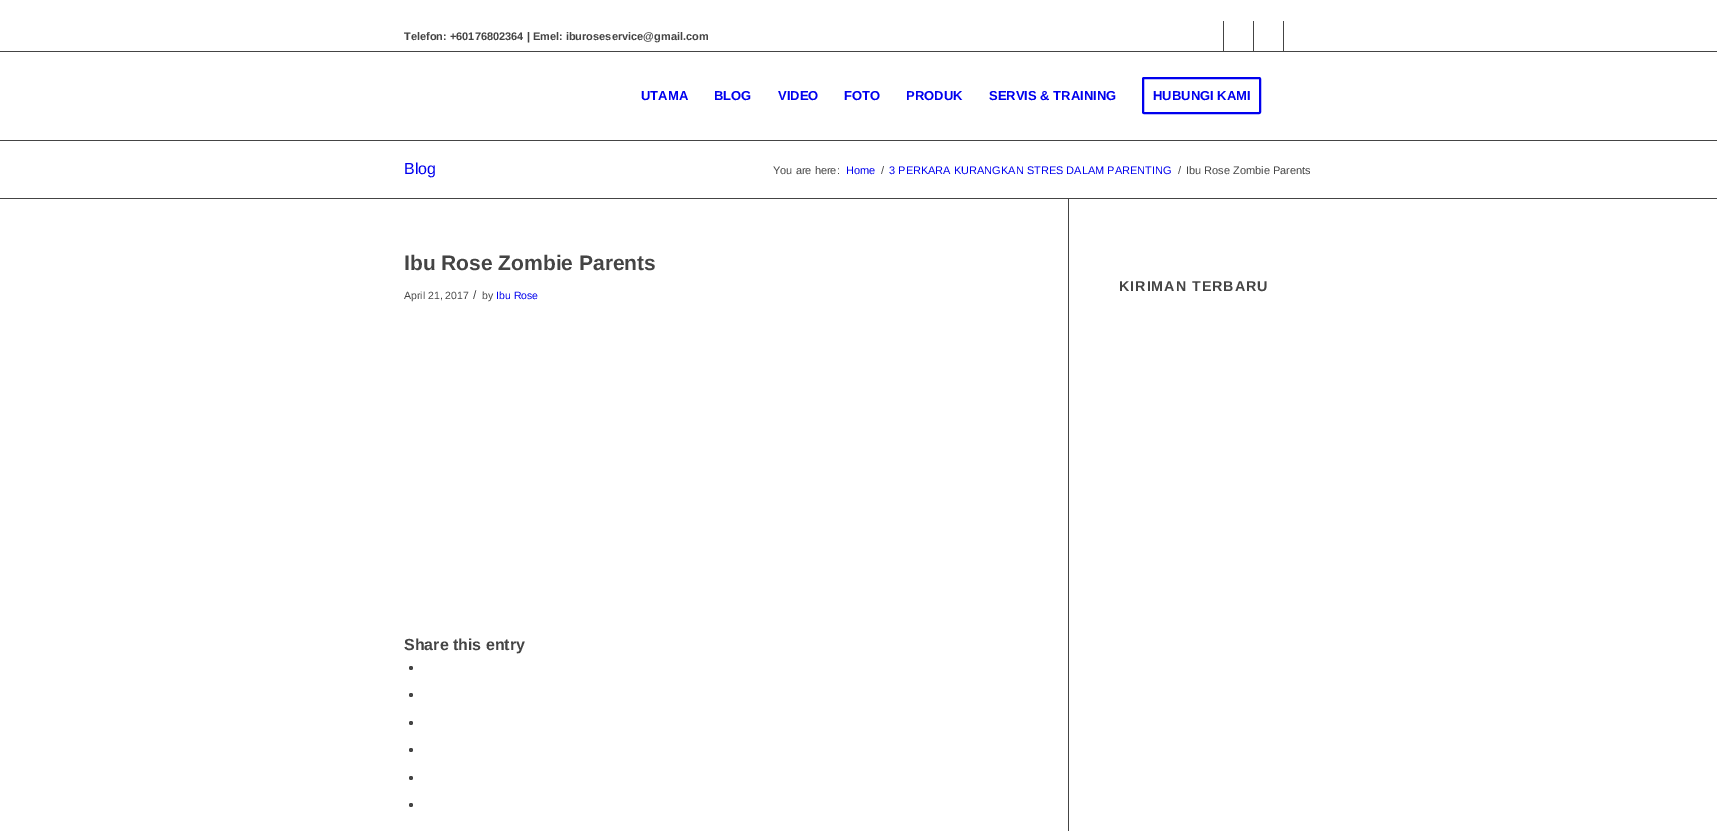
%!PS
<< /PageSize [1717 831] >> setpagedevice
/rgb { 3 { 255 div 3 1 roll } repeat setrgbcolor } def
/font { [ exch dup neg 0 0 3 -1 roll 0 0 ] selectfont } def
/text { moveto show } def
/circle { newpath 0 360 arc closepath } def
/roundrect { 5 dict begin { /r /h /w /y /x } { exch def } forall
  x r add y moveto x w add y 2 copy h add r arct x w add y h add x 1 index r arct
  x y h add x y r arct x y 2 copy exch w add exch r arct closepath end } def
0 831 translate 1 -1 scale
4 setmiterlimit
255 255 255 rgb
0 0 1717 831 rectfill
68 68 68 rgb
1223 21 1 30 rectfill
1253 21 1 30 rectfill
1283 21 1 30 rectfill
0 51 1717 1 rectfill
0 0 238 rgb
2 setlinewidth
1143 78 117 35 1 roundrect stroke
68 68 68 rgb
0 140 1717 1 rectfill
0 198 1717 1 rectfill
1068 199 1 632 rectfill
411 668 2 circle fill
411 695 2 circle fill
411 723 2 circle fill
411 750 2 circle fill
411 778 2 circle fill
411 805 2 circle fill
/LiberationSans-Bold 11 font
(Telefon: +60176802364 | Emel: iburoseservice@gmail.com) 404 40 text
/LiberationSans-Bold 13 font
0 0 238 rgb
(UTAMA) 641 100 text
(BLOG) 714 100 text
(VIDEO) 778 100 text
(FOTO) 844 100 text
(PRODUK) 906 100 text
(SERVIS & TRAINING) 989 100 text
(HUBUNGI KAMI) 1153 100 text
/LiberationSans-Regular 16 font
(Blog) 404 174 text
/LiberationSans-Regular 11 font
68 68 68 rgb
(You are here:) 773 174 text
0 0 238 rgb
(Home) 846 174 text
68 68 68 rgb
(/) 881 174 text
0 0 238 rgb
(3 PERKARA KURANGKAN STRES DALAM PARENTING) 889 174 text
68 68 68 rgb
(/) 1178 174 text
(Ibu Rose Zombie Parents) 1186 174 text
/LiberationSans-Bold 21 font
(Ibu Rose Zombie Parents) 404 270 text
/LiberationSans-Regular 10.5 font
(April 21, 2017) 404 299 text
/LiberationSans-Regular 12 font
(/) 473 299 text
/LiberationSans-Regular 10.5 font
(by) 482 299 text
0 0 238 rgb
(Ibu Rose) 496 299 text
/LiberationSans-Bold 16 font
68 68 68 rgb
(Share this entry) 404 650 text
/LiberationSans-Bold 14.25 font
1119 291 moveto 1 0 (KIRIMAN TERBARU) ashow
showpage
